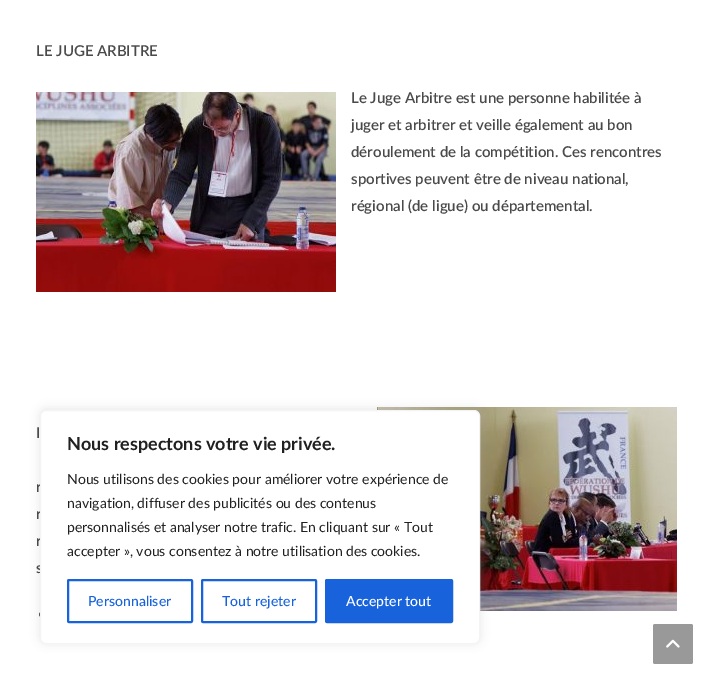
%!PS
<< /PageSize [713 684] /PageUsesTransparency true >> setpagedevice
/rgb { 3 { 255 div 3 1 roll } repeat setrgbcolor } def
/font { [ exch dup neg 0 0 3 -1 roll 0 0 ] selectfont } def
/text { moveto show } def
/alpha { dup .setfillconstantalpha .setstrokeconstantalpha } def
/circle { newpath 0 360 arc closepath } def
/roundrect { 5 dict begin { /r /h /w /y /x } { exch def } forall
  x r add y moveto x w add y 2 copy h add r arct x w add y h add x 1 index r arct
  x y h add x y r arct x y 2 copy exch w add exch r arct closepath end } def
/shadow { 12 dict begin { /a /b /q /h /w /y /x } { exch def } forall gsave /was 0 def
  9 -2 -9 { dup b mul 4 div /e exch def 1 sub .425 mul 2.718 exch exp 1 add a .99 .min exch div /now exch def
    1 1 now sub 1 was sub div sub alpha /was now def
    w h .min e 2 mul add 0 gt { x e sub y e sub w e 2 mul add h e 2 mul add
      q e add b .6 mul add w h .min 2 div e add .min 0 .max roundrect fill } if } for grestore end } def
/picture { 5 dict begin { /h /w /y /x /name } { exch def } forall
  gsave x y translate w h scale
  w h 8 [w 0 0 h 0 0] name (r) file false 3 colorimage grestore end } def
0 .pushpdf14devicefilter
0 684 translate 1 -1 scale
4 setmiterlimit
255 255 255 rgb
0 0 713 684 rectfill
(img_01.rgb) 36 92 300 200 picture
(img_02.rgb) 377 407 300 204 picture
74 74 74 rgb
41.5 614.5 2.5 circle fill
172 171 171 rgb
40 409 440 234 6 5 0.3 shadow
153 153 153 rgb
653 624 40 40 2 roundrect fill
(img_03.rgb) 666 639 14 9 picture
/Lato-SemiBold 15 font
74 74 74 rgb
(LE JUGE ARBITRE) 36 56 text
(Le Juge Arbitre est une personne habilitée à) 351 103 text
(juger et arbitrer et veille également au bon) 351 130 text
(déroulement de la compétition. Ces rencontres) 351 157 text
(sportives peuvent être de niveau national,) 351 184 text
(régional \(de ligue\) ou départemental.) 351 211 text
(I) 36 438 text
(r) 36 492 text
(r) 36 519 text
(r) 36 546 text
(s) 36 573 text
255 255 255 rgb
40.5 410.5 439 233 5.5 roundrect gsave fill grestore
244 244 244 rgb
stroke
/Lato-Bold 18 font
33 33 33 rgb
(Nous respectons votre vie privée.) 67 450 text
/Lato-Regular 14 font
(Nous utilisons des cookies pour améliorer votre expérience de) 67 484 text
(navigation, diffuser des publicités ou des contenus) 67 508 text
(personnalisés et analyser notre trafic. En cliquant sur « Tout) 67 532 text
(accepter », vous consentez à notre utilisation des cookies.) 67 556 text
24 99 220 rgb
2 setlinewidth
68 580 124 42 1 roundrect stroke
/Lato-Medium 14 font
(Personnaliser) 88 606 text
202 580 114 42 1 roundrect stroke
(Tout rejeter) 222 606 text
326 580 126 42 1 roundrect gsave fill grestore
stroke
255 255 255 rgb
(Accepter tout) 346 606 text
.poppdf14devicefilter showpage
